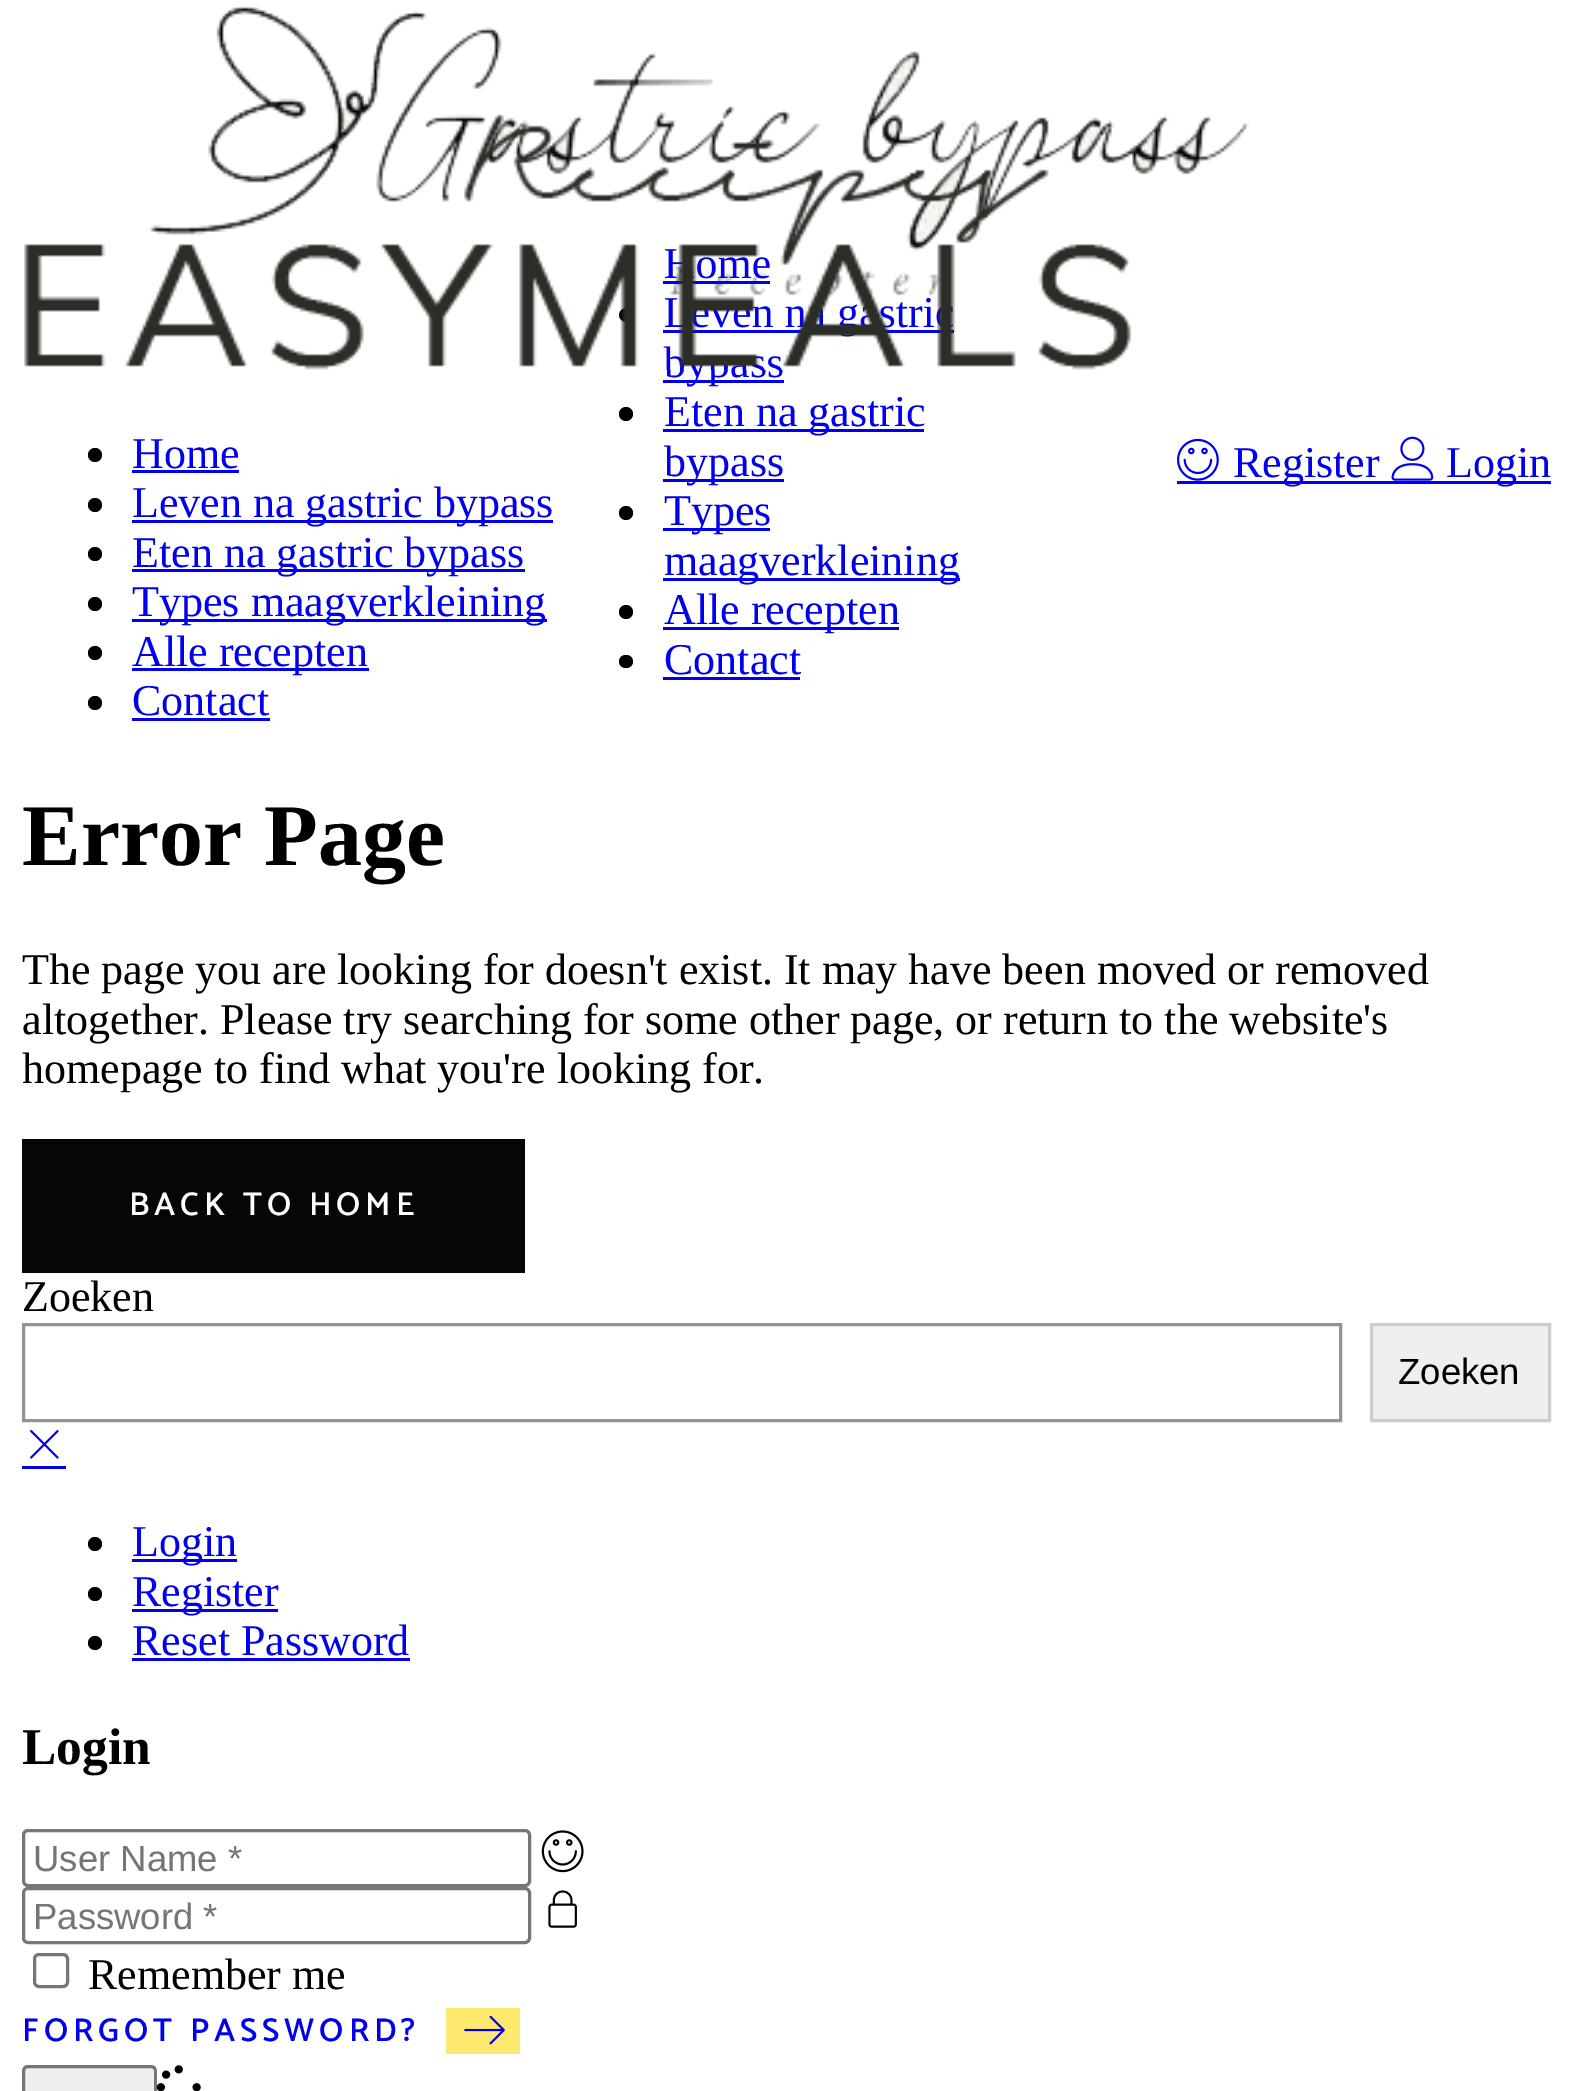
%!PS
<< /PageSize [1572 2091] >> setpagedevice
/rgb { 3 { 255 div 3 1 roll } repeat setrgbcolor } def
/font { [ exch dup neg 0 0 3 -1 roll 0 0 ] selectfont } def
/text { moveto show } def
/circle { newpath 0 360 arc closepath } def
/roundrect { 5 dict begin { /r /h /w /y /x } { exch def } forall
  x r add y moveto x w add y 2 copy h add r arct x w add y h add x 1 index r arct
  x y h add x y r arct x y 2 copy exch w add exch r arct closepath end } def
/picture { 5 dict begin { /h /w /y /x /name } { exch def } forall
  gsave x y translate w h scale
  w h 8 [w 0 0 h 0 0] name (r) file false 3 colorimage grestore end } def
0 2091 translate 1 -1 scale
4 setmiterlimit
255 255 255 rgb
0 0 1572 2091 rectfill
0 0 0 rgb
95 455 7 circle fill
0 0 238 rgb
132 470 107 3 rectfill
0 0 0 rgb
95 505 7 circle fill
0 0 238 rgb
132 520 421 3 rectfill
0 0 0 rgb
95 554 7 circle fill
0 0 238 rgb
132 569 393 3 rectfill
0 0 0 rgb
95 604 7 circle fill
0 0 238 rgb
132 619 415 3 rectfill
0 0 0 rgb
95 653 7 circle fill
0 0 238 rgb
132 668 237 3 rectfill
0 0 0 rgb
95 703 7 circle fill
0 0 238 rgb
132 718 138 3 rectfill
(img_02.rgb) 150 5 1100 301 picture
663 281 107 3 rectfill
0 0 0 rgb
626 315 7 circle fill
0 0 238 rgb
663 330 291 3 rectfill
663 380 121 3 rectfill
0 0 0 rgb
626 414 7 circle fill
0 0 238 rgb
663 429 261 3 rectfill
663 479 121 3 rectfill
0 0 0 rgb
626 513 7 circle fill
0 0 238 rgb
663 528 107 3 rectfill
663 578 297 3 rectfill
0 0 0 rgb
626 612 7 circle fill
0 0 238 rgb
663 627 236 3 rectfill
0 0 0 rgb
619 655 14 13 6.5 roundrect fill
0 0 238 rgb
663 677 137 3 rectfill
(img_03.rgb) 1177 438 42 43 picture
1177 481 374 3 rectfill
(img_04.rgb) 1391 436 43 45 picture
6 6 6 rgb
22 1139 503 134 rectfill
148 148 148 rgb
3 setlinewidth
23.5 1324.5 1317 96 rectstroke
239 239 239 rgb
1371.5 1324.5 moveto 178 0 rlineto 0 96 rlineto -178 0 rlineto closepath gsave fill grestore
204 204 204 rgb
stroke
(img_05.rgb) 30 1430 29 29 picture
0 0 238 rgb
22 1466 44 3 rectfill
0 0 0 rgb
95 1544 7 circle fill
0 0 238 rgb
132 1559 105 3 rectfill
0 0 0 rgb
95 1594 7 circle fill
0 0 238 rgb
132 1609 146 3 rectfill
0 0 0 rgb
95 1643 7 circle fill
0 0 238 rgb
132 1658 278 3 rectfill
118 118 118 rgb
23.5 1830.5 506 55 4.5 roundrect stroke
(img_06.rgb) 541 1830 43 43 picture
23.5 1888.5 506 54 4.5 roundrect stroke
(img_07.rgb) 548 1890 29 38 picture
34.5 1954.5 33 32 4.5 roundrect stroke
254 232 109 rgb
446 2008 74 46 rectfill
(img_08.rgb) 464 2015 41 30 picture
239 239 239 rgb
23.5 2066.5 132 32 4.5 roundrect gsave fill grestore
118 118 118 rgb
stroke
(img_09.rgb) 156 2065 45 26 picture
/LiberationSerif-Regular 44 font
0 0 238 rgb
(Home) 132 468 text
(Leven na gastric bypass) 132 517 text
(Eten na gastric bypass) 132 567 text
(Types maagverkleining) 132 616 text
(Alle recepten) 132 666 text
(Contact) 132 715 text
(Home) 664 278 text
(n n) 752 327 text
(tri) 896 327 text
(bypass) 664 377 text
(img_01.rgb) 24 114 1108 256 picture
(Eten na gastric) 664 426 text
(bypass) 664 476 text
(Types) 664 525 text
(maagverkleining) 664 575 text
(Alle recepten) 664 624 text
(Contact) 664 674 text
(Register) 1233 477 text
(Login) 1446 477 text
/LiberationSerif-Bold 88 font
0 0 0 rgb
(Error Page) 22 865 text
/LiberationSerif-Regular 44 font
(The page you are looking for doesn't exist. It may have been moved or removed) 22 984 text
(altogether. Please try searching for some other page, or return to the website's) 22 1034 text
(homepage to find what you're looking for.) 22 1083 text
/Catamaran-SemiBold 33 font
255 255 255 rgb
129 1215 moveto 5 0 (BACK TO HOME) ashow
/LiberationSerif-Regular 44 font
0 0 0 rgb
(Zoeken) 22 1311 text
/LiberationSans-Regular 36.5 font
(Zoeken) 1398 1384 text
/LiberationSerif-Regular 44 font
0 0 238 rgb
(Login) 132 1556 text
(Register) 132 1606 text
(Reset Password) 132 1655 text
/LiberationSerif-Bold 51.5 font
0 0 0 rgb
(Login) 22 1764 text
/LiberationSans-Regular 36.5 font
117 117 117 rgb
(User Name *) 33 1871 text
(Password *) 33 1929 text
/LiberationSerif-Regular 44 font
0 0 0 rgb
(Remember me) 88 1989 text
/Catamaran-SemiBold 33 font
0 0 238 rgb
22 2041 moveto 5 0 (FORGOT PASSWORD?) ashow
showpage
